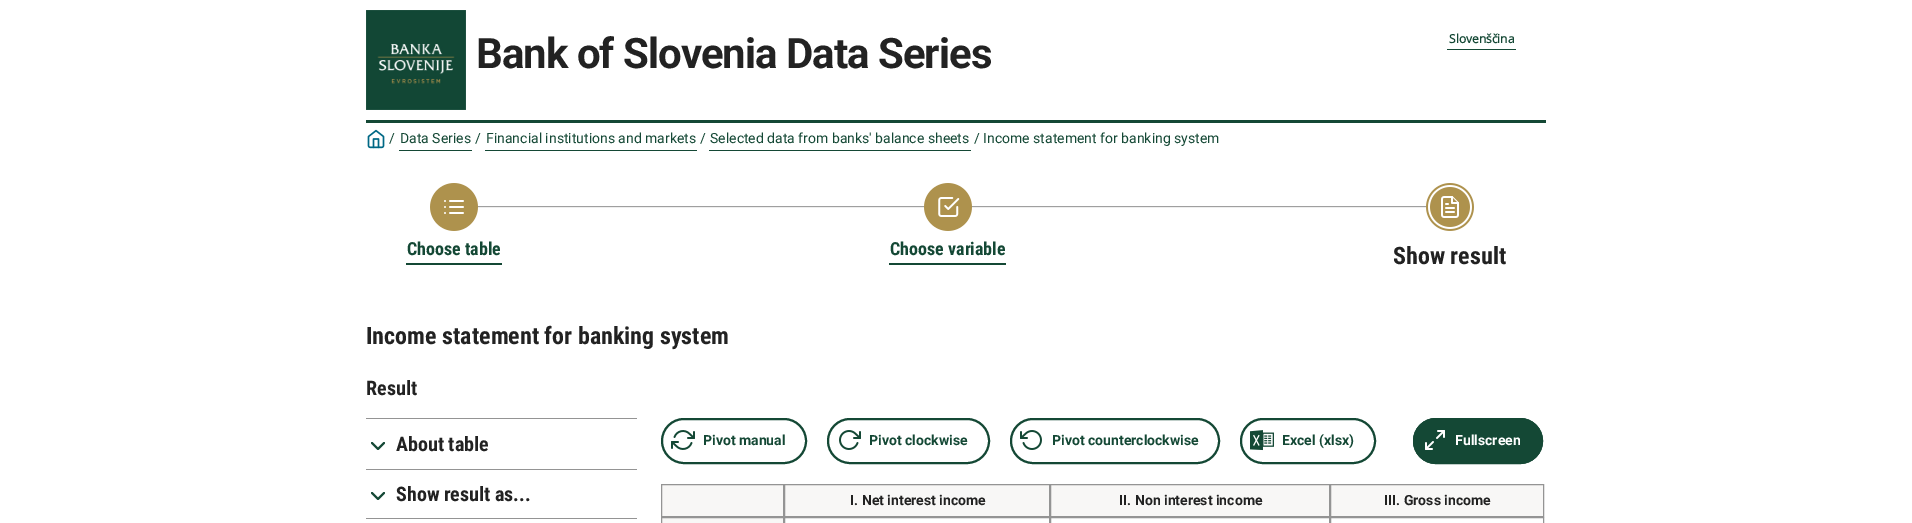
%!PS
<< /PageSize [1912 523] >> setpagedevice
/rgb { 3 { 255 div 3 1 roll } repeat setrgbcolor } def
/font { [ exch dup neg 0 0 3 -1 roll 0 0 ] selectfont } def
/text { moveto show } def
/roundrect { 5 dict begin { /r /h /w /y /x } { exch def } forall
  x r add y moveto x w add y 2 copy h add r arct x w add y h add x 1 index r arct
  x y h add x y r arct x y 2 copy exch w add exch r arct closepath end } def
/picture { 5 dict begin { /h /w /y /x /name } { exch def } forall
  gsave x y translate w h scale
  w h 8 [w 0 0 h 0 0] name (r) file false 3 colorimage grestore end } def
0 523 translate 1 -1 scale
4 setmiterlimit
255 255 255 rgb
0 0 1912 523 rectfill
(img_01.rgb) 366 10 100 100 picture
20 72 53 rgb
1447 49 69 1 rectfill
366 120 1180 3 rectfill
(img_02.rgb) 367 129 18 20 picture
399 150 73 1 rectfill
485 150 212 1 rectfill
709 150 262 1 rectfill
159 159 159 rgb
477 206 448 1 rectfill
238 238 238 rgb
477 207 448 1 rectfill
159 159 159 rgb
971 206 455 1 rectfill
238 238 238 rgb
971 207 455 1 rectfill
(img_03.rgb) 430 183 48 48 picture
20 72 53 rgb
406 263 96 2 rectfill
(img_04.rgb) 924 183 48 48 picture
889 263 117 2 rectfill
(img_05.rgb) 1426 183 48 48 picture
148 148 148 rgb
366 418 271 1 rectfill
20 72 53 rgb
2 setlinewidth
1 setlinecap
1 setlinejoin
372 443 moveto 6 6 rlineto 6 -6 rlineto stroke
148 148 148 rgb
366 469 271 1 rectfill
20 72 53 rgb
372 493 moveto 6 6 rlineto 6 -6 rlineto stroke
148 148 148 rgb
366 518 271 1 rectfill
(img_06.rgb) 671 430 24 20 picture
20 72 53 rgb
0 setlinecap
0 setlinejoin
662 419 144 44 22 roundrect stroke
(img_07.rgb) 839 430 22 20 picture
828 419 161 44 22 roundrect stroke
(img_08.rgb) 1020 430 22 20 picture
1011 419 208 44 22 roundrect stroke
(img_09.rgb) 1250 430 24 21 picture
1241 419 134 44 22 roundrect stroke
1413 418 130 46 23 roundrect fill
(img_10.rgb) 1425 430 20 20 picture
1414 419 128 44 22 roundrect stroke
248 247 246 rgb
661.5 484.5 moveto 122 0 rlineto 0 32 rlineto -122 0 rlineto closepath gsave fill grestore
148 148 148 rgb
1 setlinewidth
stroke
248 247 246 rgb
784.5 484.5 moveto 265 0 rlineto 0 32 rlineto -265 0 rlineto closepath gsave fill grestore
148 148 148 rgb
stroke
248 247 246 rgb
1050.5 484.5 moveto 279 0 rlineto 0 32 rlineto -279 0 rlineto closepath gsave fill grestore
148 148 148 rgb
stroke
248 247 246 rgb
1330.5 484.5 moveto 213 0 rlineto 0 32 rlineto -213 0 rlineto closepath gsave fill grestore
148 148 148 rgb
stroke
248 247 246 rgb
661.5 517.5 moveto 122 0 rlineto 0 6 rlineto -122 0 rlineto closepath gsave fill grestore
148 148 148 rgb
stroke
784.5 517.5 265 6 rectstroke
1050.5 517.5 279 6 rectstroke
1330.5 517.5 213 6 rectstroke
/Roboto-Bold 42 font
34 34 34 rgb
476 68 moveto -1 0 (Bank of Slovenia Data Series) ashow
/OpenSans-Bold 12 font
20 72 53 rgb
(Slovenščina) 1449 43 text
/Roboto-Regular 14 font
(/) 389 143 text
(Data Series) 400 143 text
(/) 475 143 text
(Financial institutions and markets) 486 143 text
(/) 700 143 text
(Selected data from banks' balance sheets) 710 143 text
(/ Income statement for banking system) 974 143 text
/RobotoCondensed-Bold 18 font
(Choose table) 407 255 text
(Choose variable) 890 255 text
/RobotoCondensed-Bold 24 font
34 34 34 rgb
(Show result) 1393 264 text
(Income statement for banking system) 366 344 text
/RobotoCondensed-Bold 20 font
(Result) 366 395 text
(About table) 396 451 text
(Show result as...) 396 501 text
/Roboto-Bold 14 font
20 72 53 rgb
(Pivot manual) 703 445 text
(Pivot clockwise) 869 445 text
(Pivot counterclockwise) 1052 445 text
(Excel \(xlsx\)) 1282 445 text
255 255 255 rgb
(Fullscreen) 1455 445 text
34 34 34 rgb
(I. Net interest income) 850 505 text
(II. Non interest income) 1119 505 text
(III. Gross income) 1384 505 text
showpage
